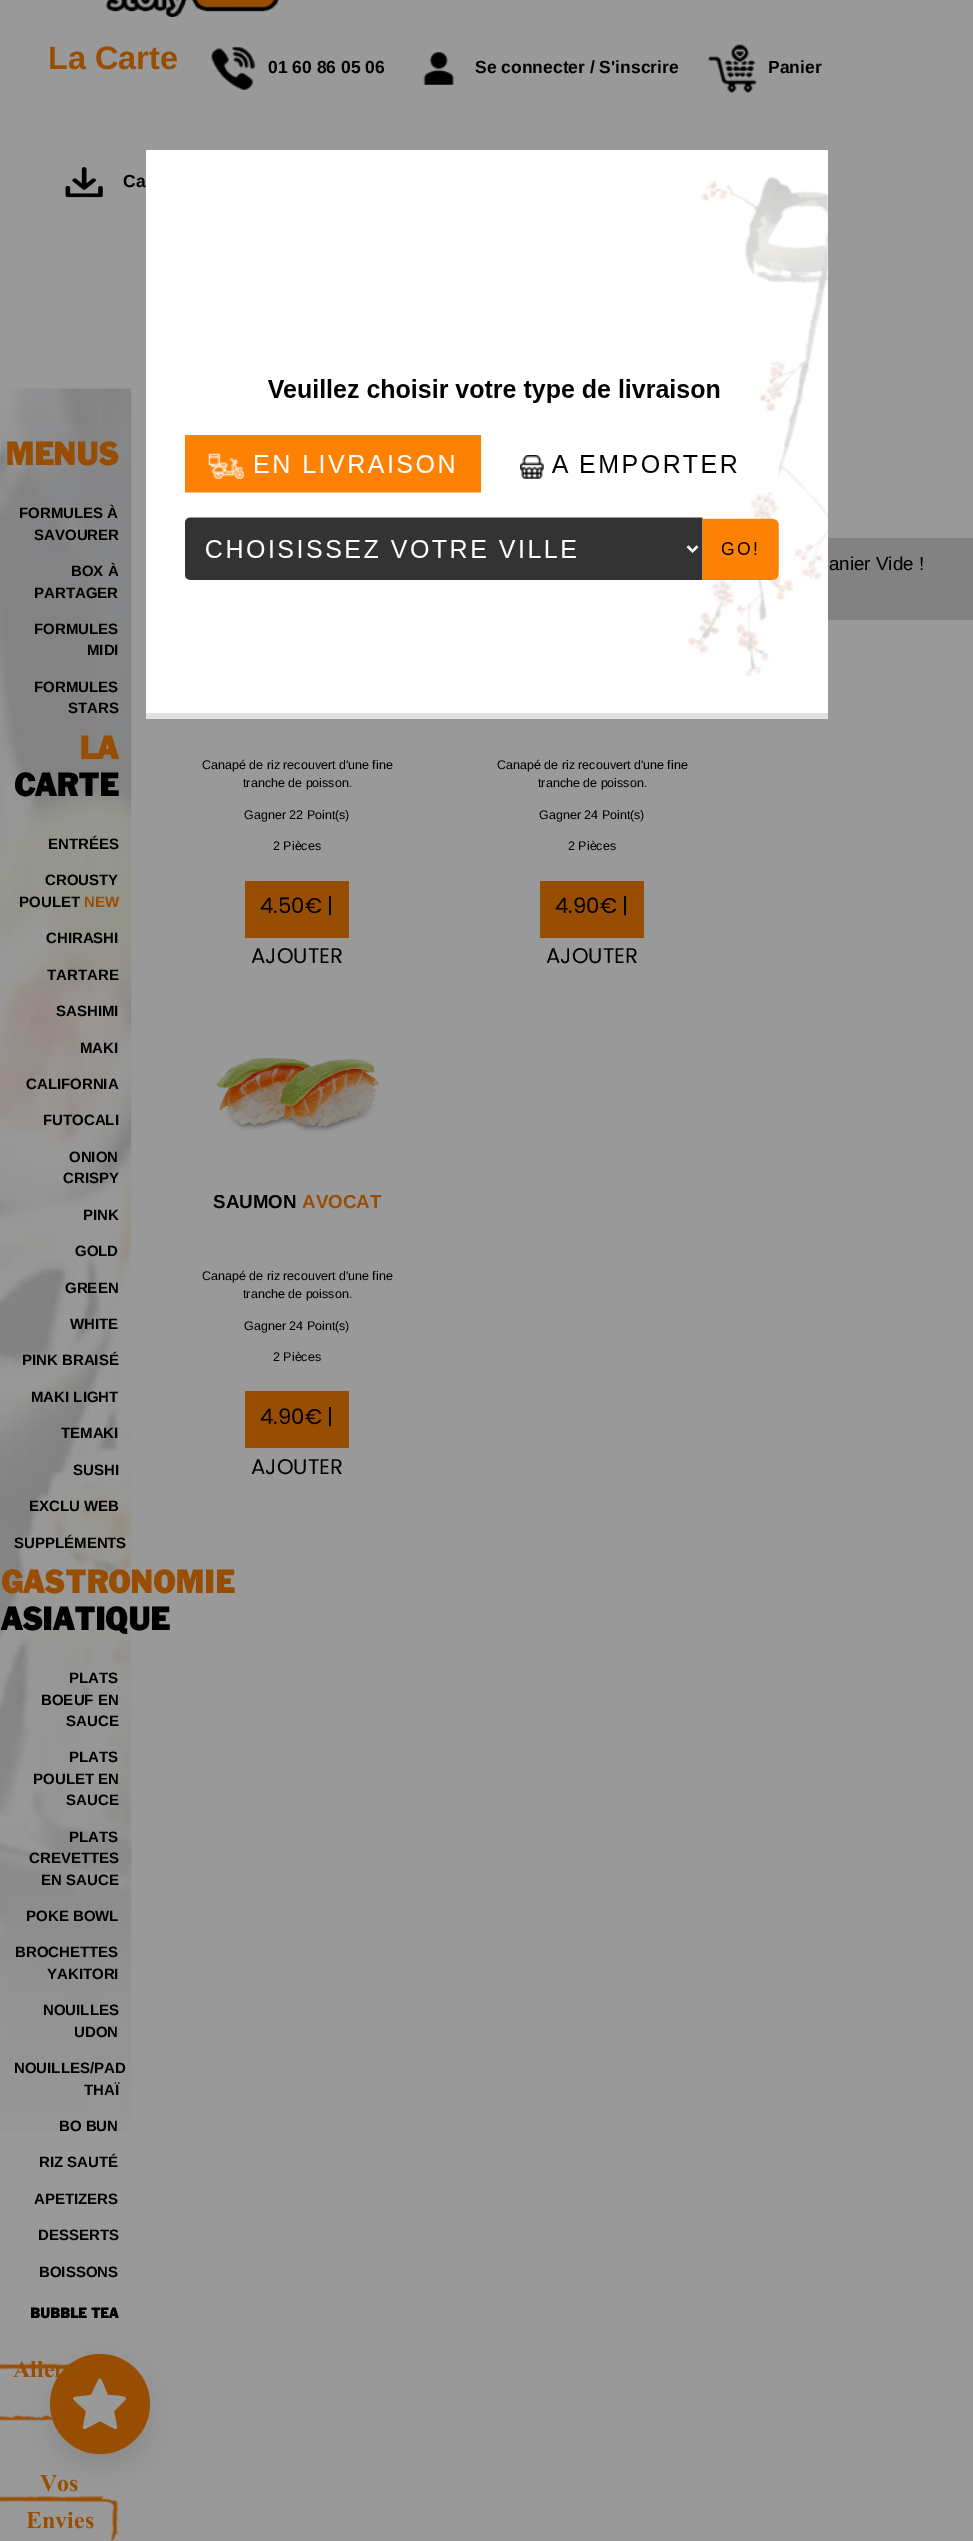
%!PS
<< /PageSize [973 2541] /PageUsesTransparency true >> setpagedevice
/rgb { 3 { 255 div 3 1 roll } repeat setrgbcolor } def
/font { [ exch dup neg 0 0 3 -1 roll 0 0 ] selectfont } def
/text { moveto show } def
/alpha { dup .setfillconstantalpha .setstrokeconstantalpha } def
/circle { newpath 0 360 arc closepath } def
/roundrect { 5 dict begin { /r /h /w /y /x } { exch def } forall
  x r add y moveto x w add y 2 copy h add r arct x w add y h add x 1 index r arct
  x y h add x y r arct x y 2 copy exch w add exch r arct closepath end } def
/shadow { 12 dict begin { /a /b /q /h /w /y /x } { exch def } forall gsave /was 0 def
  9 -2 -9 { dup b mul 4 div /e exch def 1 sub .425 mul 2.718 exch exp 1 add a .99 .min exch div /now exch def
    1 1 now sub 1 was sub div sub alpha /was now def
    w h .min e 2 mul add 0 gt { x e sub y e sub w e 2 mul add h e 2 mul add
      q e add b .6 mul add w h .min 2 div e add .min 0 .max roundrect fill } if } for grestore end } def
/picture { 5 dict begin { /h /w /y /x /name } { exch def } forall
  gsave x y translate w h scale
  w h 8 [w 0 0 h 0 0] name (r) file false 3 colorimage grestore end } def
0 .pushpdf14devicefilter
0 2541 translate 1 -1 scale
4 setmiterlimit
153 153 153 rgb
0 0 973 2541 rectfill
(img_01.rgb) 106 0 173 17 picture
(img_02.rgb) 211 47 45 43 picture
(img_03.rgb) 423 52 31 33 picture
(img_04.rgb) 708 44 49 49 picture
(img_05.rgb) 65 167 38 31 picture
(img_06.rgb) 0 388 132 1744 picture
(img_07.rgb) 0 2363 72 58 picture
(img_08.rgb) 50 2401 1 3 picture
(img_09.rgb) 0 2496 119 45 picture
130 130 130 rgb
828 538 145 82 rectfill
152 78 2 rgb
245 881 104 57 rectfill
540 881 104 57 rectfill
(img_10.rgb) 216 1057 163 76 picture
245 1391 104 57 rectfill
0 0 0 rgb
50 2366 100 100 50 12.5 0.1 shadow
152 78 2 rgb
100 2404 50 circle fill
153 153 153 rgb
126 2398 moveto 0 2 -10 11 -12 13 rcurveto 4 23 7 21 -14 10 rcurveto -21 11 -18 13 -14 -10 rcurveto -17 -16 -19 -13 5 -16 rcurveto 11 -22 7 -22 17 0 rcurveto 3 0 18 1 18 3 rcurveto closepath fill
226 226 226 rgb
146 713 682 6 rectfill
(img_11.rgb) 146 150 682 563 picture
/LiberationSans-Bold 32.5 font
152 78 2 rgb
(La Carte) 48 69 text
/LiberationSans-Bold 17.5 font
0 0 0 rgb
(01 60 86 05 06) 268 73 text
(Se connecter / S'inscrire) 475 73 text
(Panier) 768 73 text
(Ca) 123 187 text
/FranklinGothic-Bold 33.75 font
152 78 2 rgb
(MENUS) 5 465 text
/LiberationSans-Bold 15 font
0 0 0 rgb
(FORMULES À) 19 518 text
(SAVOURER) 34 540 text
(BOX À) 71 576 text
(PARTAGER) 34 598 text
(FORMULES) 34 634 text
(MIDI) 87 655 text
(FORMULES) 34 692 text
(STARS) 68 713 text
/FranklinGothic-Bold 33.75 font
152 78 2 rgb
(LA) 79 759 text
0 0 0 rgb
(CARTE) 14 796 text
/LiberationSans-Bold 15 font
(ENTRÉES) 48 849 text
(CROUSTY) 45 885 text
(POULET) 19 907 text
152 78 2 rgb
(NEW) 84 907 text
0 0 0 rgb
(CHIRASHI) 46 943 text
(TARTARE) 47 980 text
(SASHIMI) 56 1016 text
(MAKI) 80 1053 text
(CALIFORNIA) 26 1089 text
(FUTOCALI) 43 1125 text
(ONION) 69 1162 text
(CRISPY) 63 1183 text
(PINK) 83 1220 text
(GOLD) 75 1256 text
(GREEN) 65 1293 text
(WHITE) 70 1329 text
(PINK BRAISÉ) 22 1365 text
(MAKI LIGHT) 31 1402 text
(TEMAKI) 61 1438 text
(SUSHI) 73 1475 text
(EXCLU WEB) 29 1511 text
(SUPPLÉMENTS) 14 1548 text
/FranklinGothic-Bold 33.75 font
152 78 2 rgb
(GASTRONOMIE) 1 1593 text
0 0 0 rgb
(ASIATIQUE) 1 1630 text
/LiberationSans-Bold 15 font
(PLATS) 69 1683 text
(BOEUF EN) 41 1705 text
(SAUCE) 66 1726 text
(PLATS) 69 1762 text
(POULET EN) 33 1784 text
(SAUCE) 66 1805 text
(PLATS) 69 1842 text
(CREVETTES) 29 1863 text
(EN SAUCE) 41 1885 text
(POKE BOWL) 26 1921 text
(BROCHETTES) 15 1957 text
(YAKITORI) 47 1979 text
(NOUILLES) 43 2015 text
(UDON) 74 2037 text
(NOUILLES/PAD) 14 2073 text
(THAÏ) 84 2095 text
(BO BUN) 59 2131 text
(RIZ SAUTÉ) 39 2167 text
(APETIZERS) 34 2204 text
(DESSERTS) 38 2240 text
(BOISSONS) 39 2277 text
/FranklinGothic-Bold 15 font
(BUBBLE TEA) 30 2318 text
/TimesNewRoman-Bold 24 font
152 78 2 rgb
(Aller) 13 2377 text
(Vos) 40 2491 text
(Envies) 26 2528 text
/LiberationSans-Regular 18.75 font
0 0 0 rgb
(anier Vide !) 829 570 text
/LiberationSans-Regular 12.5 font
(Canapé de riz recouvert d'une fine) 202 769 text
(tranche de poisson.) 243 787 text
(Gagner 22 Point\(s\)) 244 819 text
(2 Pièces) 273 850 text
/Poppins-Regular 21.25 font
(4.50€ |) 260 913 text
(AJOUTER) 251 963 text
/LiberationSans-Regular 12.5 font
(Canapé de riz recouvert d'une fine) 497 769 text
(tranche de poisson.) 538 787 text
(Gagner 24 Point\(s\)) 539 819 text
(2 Pièces) 568 850 text
/Poppins-Regular 21.25 font
(4.90€ |) 555 913 text
(AJOUTER) 546 963 text
/LiberationSans-Bold 18.75 font
(SAUMON) 213 1208 text
152 78 2 rgb
(AVOCAT) 302 1208 text
/LiberationSans-Regular 12.5 font
0 0 0 rgb
(Canapé de riz recouvert d'une fine) 202 1280 text
(tranche de poisson.) 243 1298 text
(Gagner 24 Point\(s\)) 244 1330 text
(2 Pièces) 273 1361 text
/Poppins-Regular 21.25 font
(4.90€ |) 260 1424 text
(AJOUTER) 251 1474 text
.poppdf14devicefilter showpage
